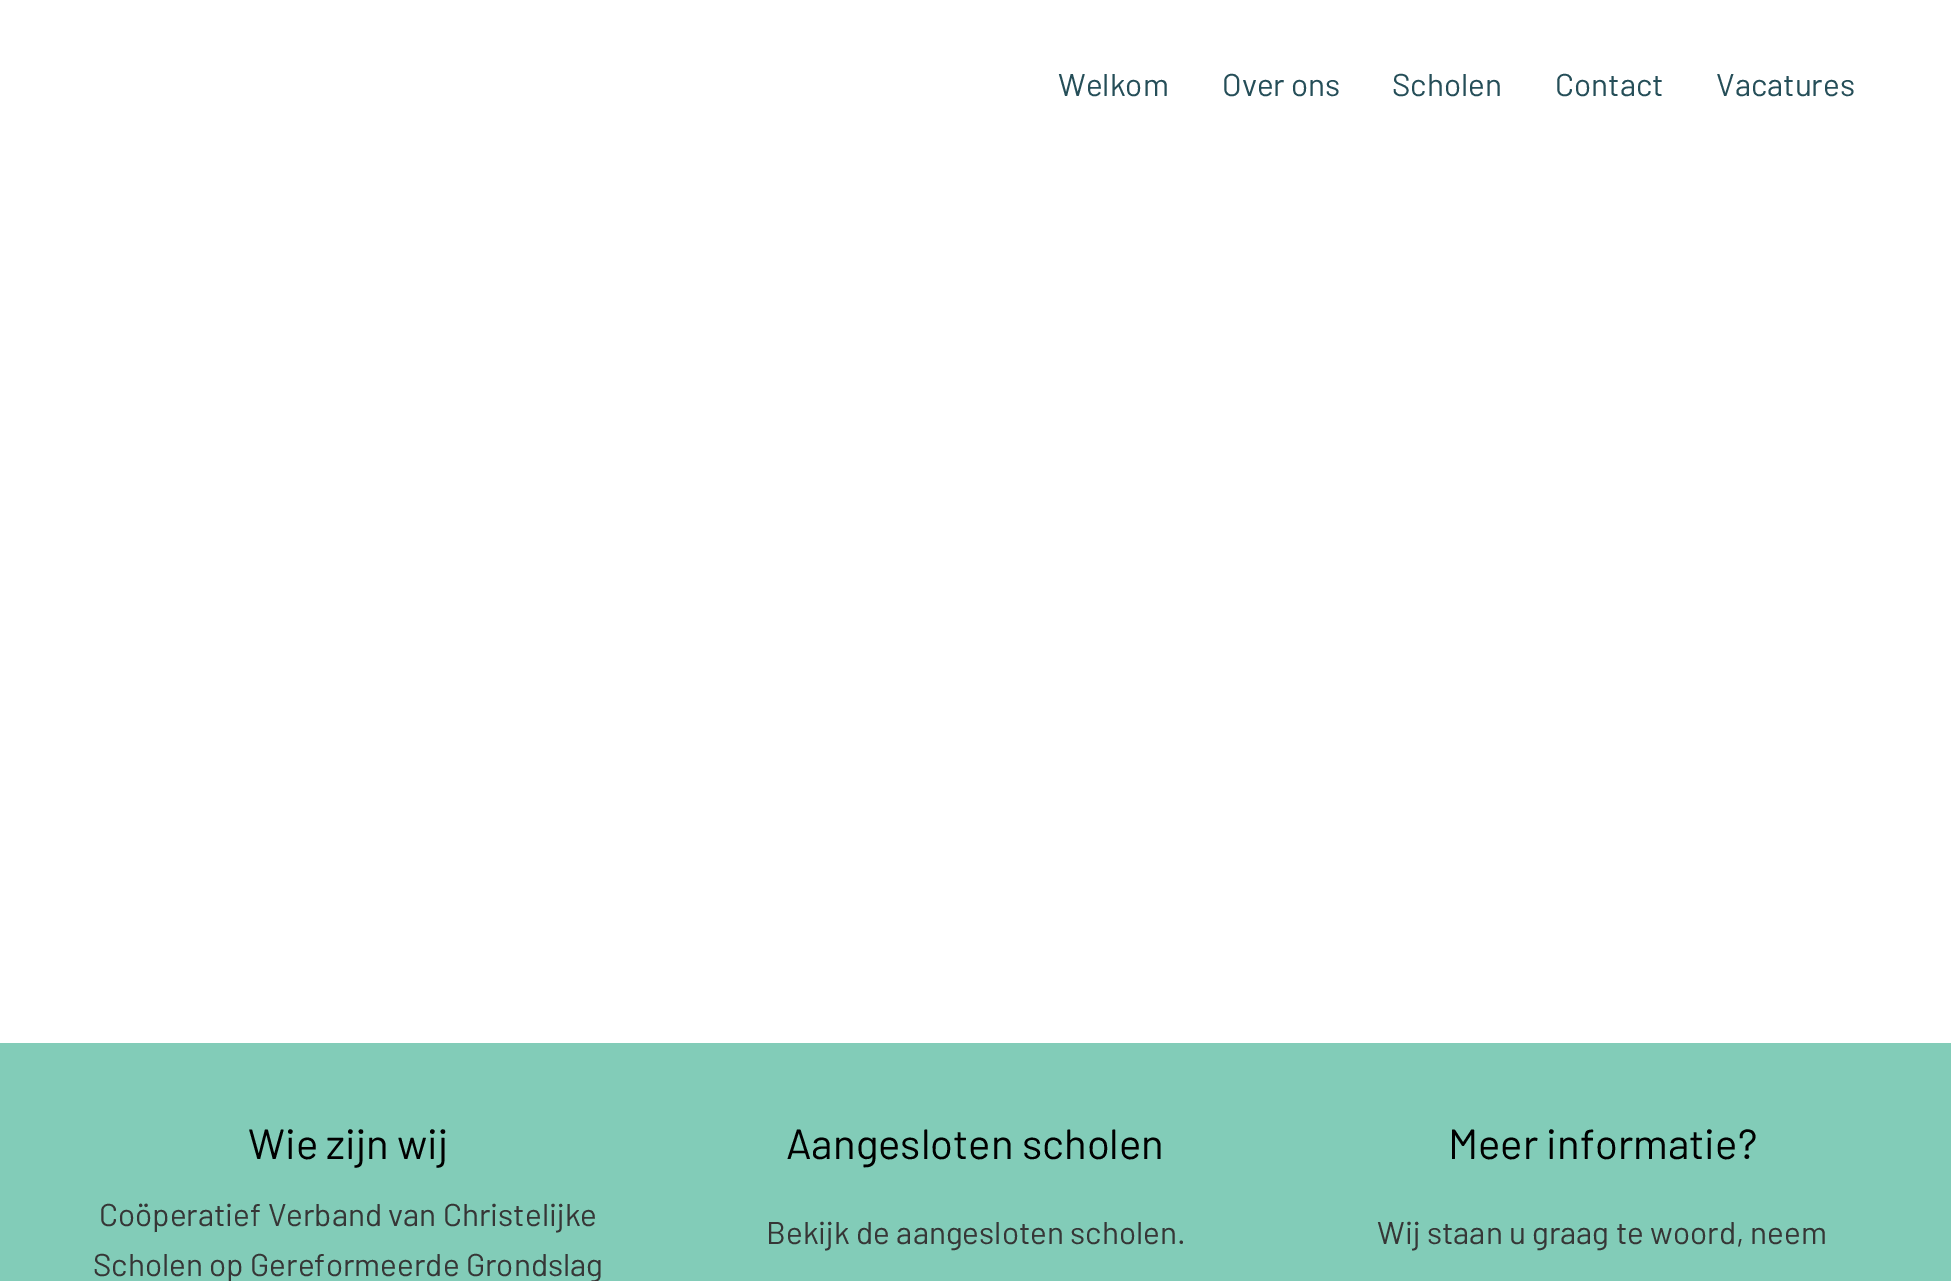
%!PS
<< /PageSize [1951 1281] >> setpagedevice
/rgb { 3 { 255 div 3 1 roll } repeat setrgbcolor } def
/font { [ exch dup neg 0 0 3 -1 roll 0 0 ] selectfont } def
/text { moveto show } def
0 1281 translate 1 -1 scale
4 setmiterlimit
255 255 255 rgb
0 0 1951 1281 rectfill
130 204 184 rgb
0 1043 1951 238 rectfill
/Barlow-Regular 31.5 font
37 78 88 rgb
(Welkom) 1058 96 text
(Over ons) 1222 96 text
(Scholen) 1392 96 text
(Contact) 1555 96 text
(Vacatures) 1716 96 text
/Barlow-Regular 42 font
0 0 0 rgb
(Wie zijn wij) 248 1159 text
/Barlow-Regular 31.5 font
54 54 54 rgb
(Coöperatief Verband van Christelijke) 99 1226 text
(Scholen op Gereformeerde Grondslag) 93 1276 text
/Barlow-Regular 42 font
0 0 0 rgb
(Aangesloten scholen) 786 1159 text
/Barlow-Regular 31.5 font
54 54 54 rgb
(Bekijk de aangesloten scholen.) 766 1244 text
/Barlow-Regular 42 font
0 0 0 rgb
(Meer informatie?) 1448 1159 text
/Barlow-Regular 31.5 font
54 54 54 rgb
(Wij staan u graag te woord, neem) 1377 1244 text
showpage
